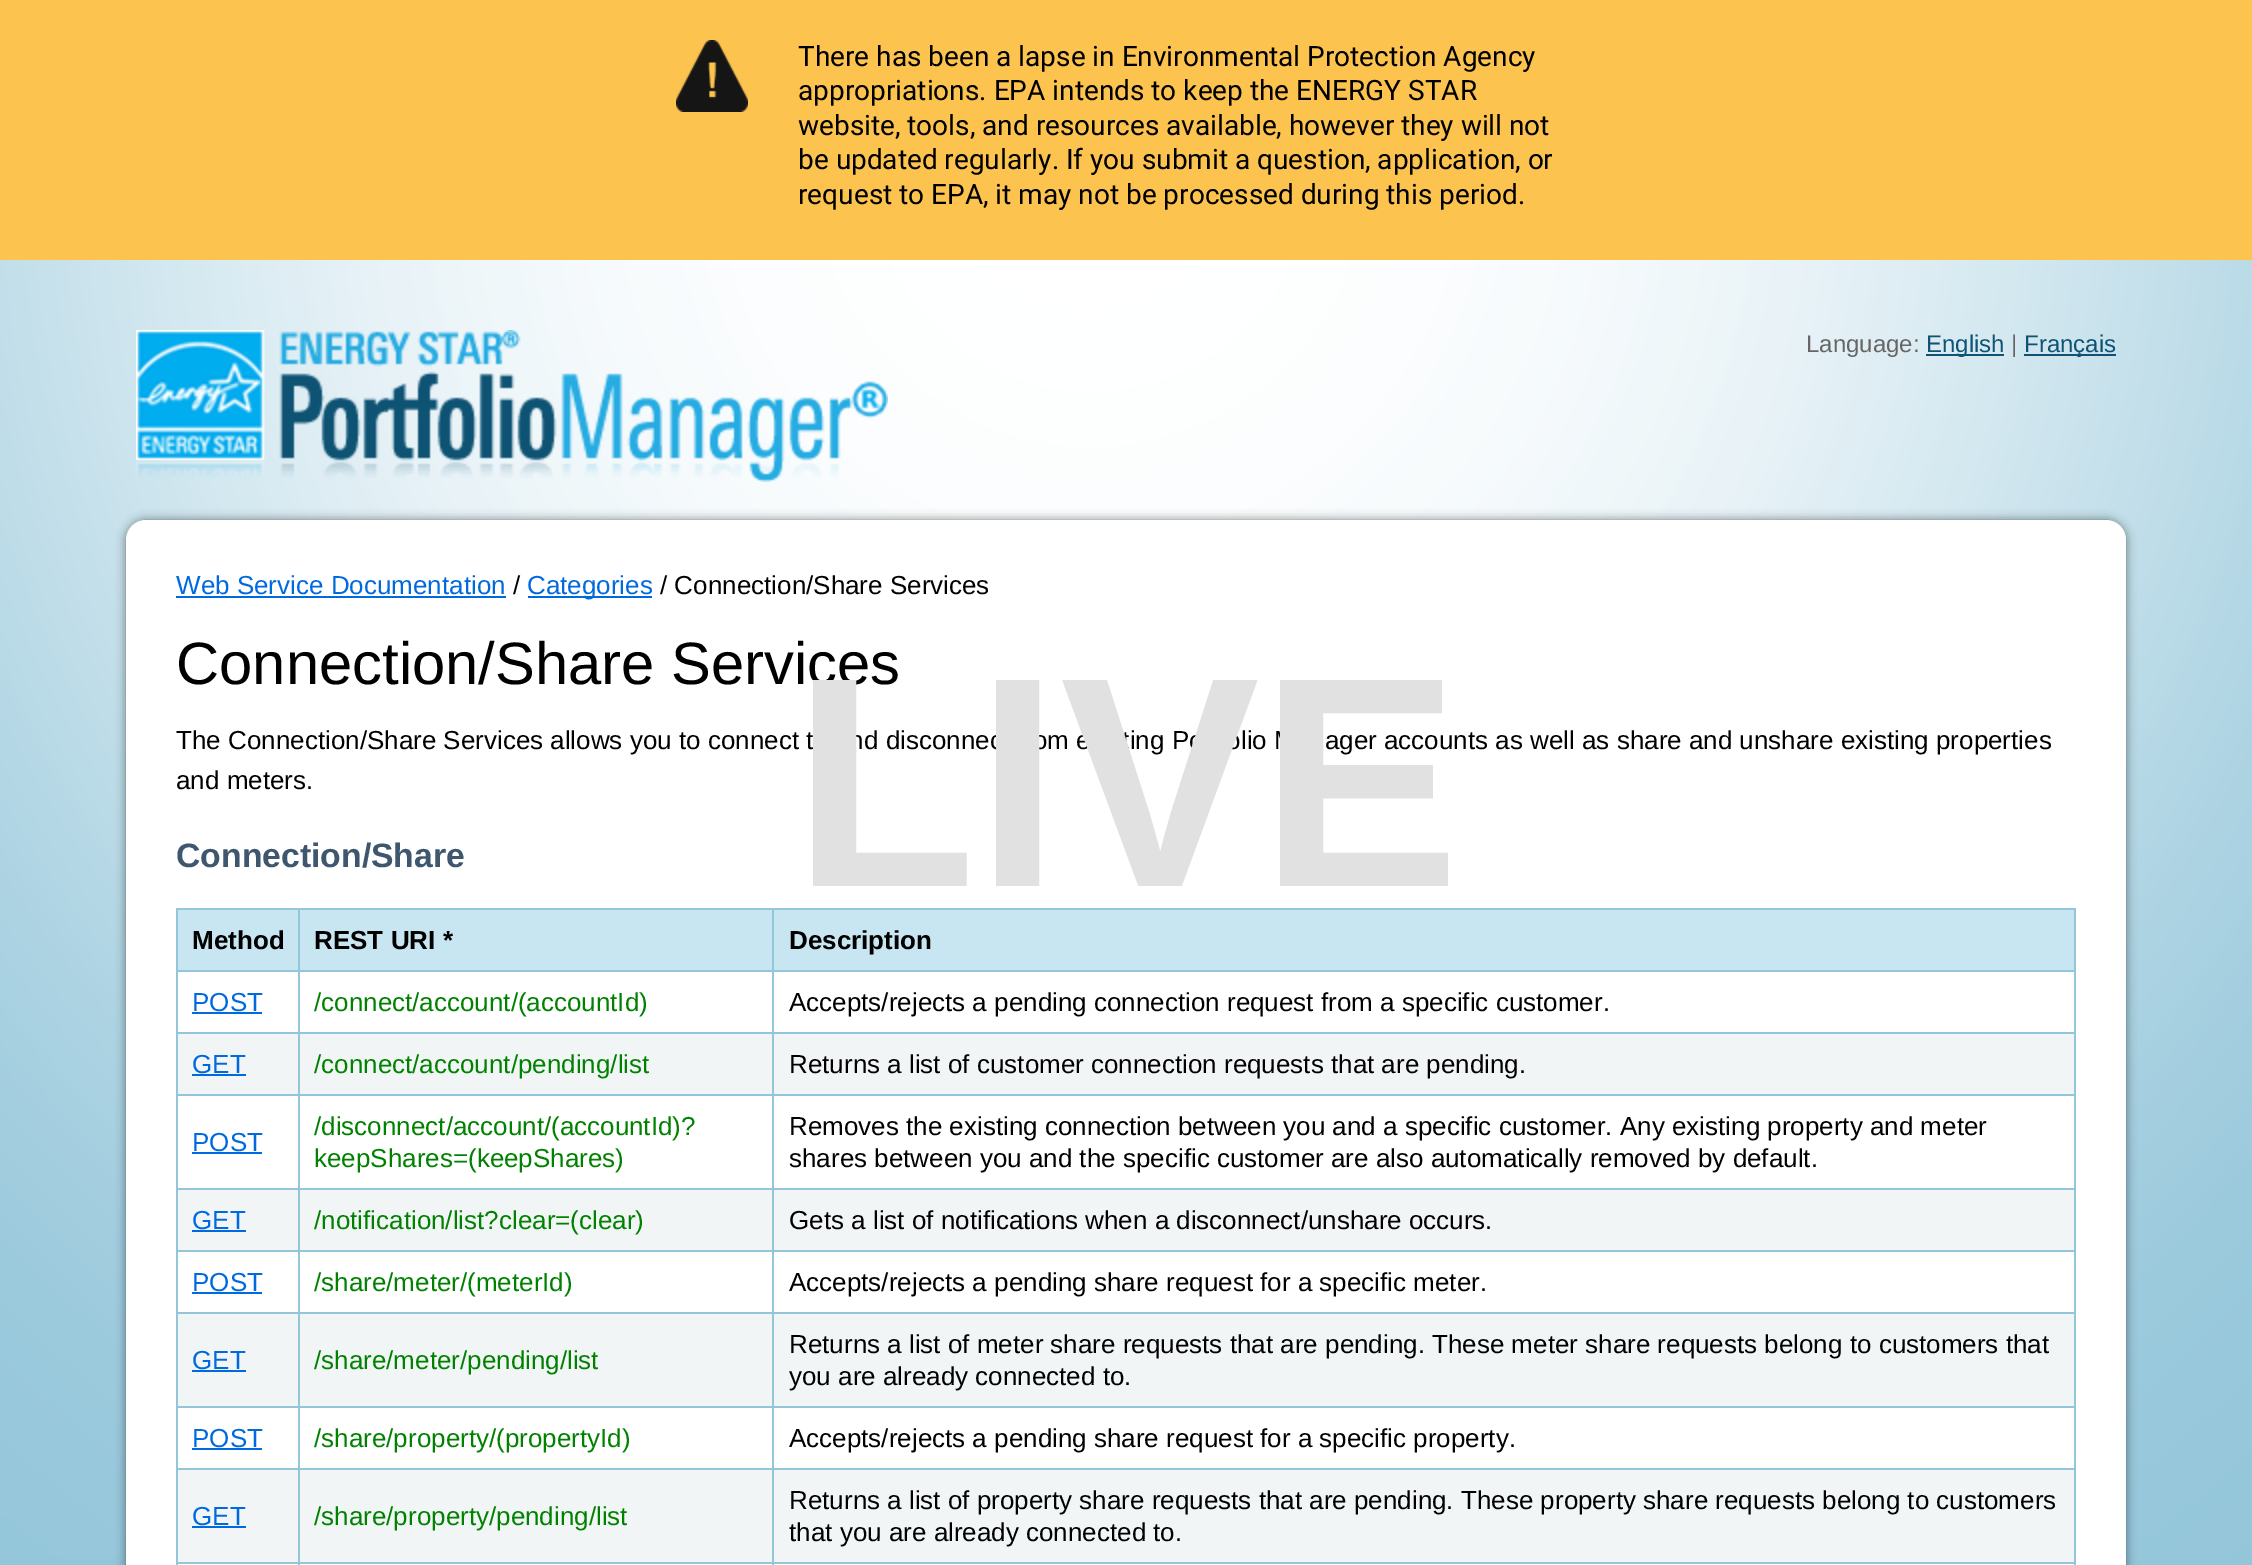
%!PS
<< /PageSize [2252 1565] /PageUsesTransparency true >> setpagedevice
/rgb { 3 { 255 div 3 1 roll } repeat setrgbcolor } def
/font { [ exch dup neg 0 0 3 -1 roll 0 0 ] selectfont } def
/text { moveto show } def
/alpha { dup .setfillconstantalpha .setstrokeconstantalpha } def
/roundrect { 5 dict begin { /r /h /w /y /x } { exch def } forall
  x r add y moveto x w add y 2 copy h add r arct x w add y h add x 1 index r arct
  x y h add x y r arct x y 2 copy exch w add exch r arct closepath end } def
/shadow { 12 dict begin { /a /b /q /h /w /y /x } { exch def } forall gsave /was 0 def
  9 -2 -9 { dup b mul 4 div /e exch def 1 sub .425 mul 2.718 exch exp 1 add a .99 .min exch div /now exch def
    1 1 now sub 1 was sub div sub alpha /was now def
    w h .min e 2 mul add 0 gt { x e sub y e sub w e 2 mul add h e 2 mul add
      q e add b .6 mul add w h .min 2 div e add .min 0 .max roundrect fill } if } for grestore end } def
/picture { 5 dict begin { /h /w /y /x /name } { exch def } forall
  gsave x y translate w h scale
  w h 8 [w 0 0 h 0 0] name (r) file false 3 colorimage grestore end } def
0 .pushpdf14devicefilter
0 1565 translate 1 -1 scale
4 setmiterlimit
148 198 218 rgb
0 0 2252 1565 rectfill
(img_01.rgb) 0 260 2252 1299 picture
252 195 78 rgb
0 0 2252 260 rectfill
(img_02.rgb) 676 40 72 72 picture
(img_03.rgb) 136 330 752 152 picture
14 83 116 rgb
1926 354 78 2 rectfill
2024 354 92 2 rectfill
0 0 0 rgb
126 520 2000 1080 20 5 0.5 shadow
255 255 255 rgb
126 520 2000 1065 20 roundrect fill
0 105 223 rgb
176 596 330 2 rectfill
528 596 124 2 rectfill
199 230 242 rgb
178 910 120 60 rectfill
148 198 218 rgb
772 908 1304 2 rectfill
772 970 1304 2 rectfill
772 1032 1304 2 rectfill
242 245 246 rgb
178 1034 1896 60 rectfill
148 198 218 rgb
772 1094 1304 2 rectfill
772 1188 1304 2 rectfill
242 245 246 rgb
178 1190 1896 60 rectfill
148 198 218 rgb
772 1250 1304 2 rectfill
772 1312 1304 2 rectfill
242 245 246 rgb
178 1314 1896 92 rectfill
148 198 218 rgb
772 1406 1304 2 rectfill
772 1468 1304 2 rectfill
242 245 246 rgb
178 1470 1896 92 rectfill
148 198 218 rgb
772 1562 1304 2 rectfill
772 1562 2 3 rectfill
298 1562 476 2 rectfill
772 1468 2 96 rectfill
298 1468 476 2 rectfill
772 1406 2 64 rectfill
298 1406 476 2 rectfill
772 1312 2 96 rectfill
298 1312 476 2 rectfill
772 1250 2 64 rectfill
298 1250 476 2 rectfill
772 1188 2 64 rectfill
298 1188 476 2 rectfill
772 1094 2 96 rectfill
298 1094 476 2 rectfill
772 1032 2 64 rectfill
298 1032 476 2 rectfill
772 970 2 64 rectfill
298 970 476 2 rectfill
772 908 2 64 rectfill
298 908 476 2 rectfill
298 1562 2 3 rectfill
176 1562 124 2 rectfill
298 1468 2 96 rectfill
176 1468 124 2 rectfill
298 1406 2 64 rectfill
176 1406 124 2 rectfill
298 1312 2 96 rectfill
176 1312 124 2 rectfill
298 1250 2 64 rectfill
176 1250 124 2 rectfill
298 1188 2 64 rectfill
176 1188 124 2 rectfill
298 1094 2 96 rectfill
176 1094 124 2 rectfill
298 1032 2 64 rectfill
176 1032 124 2 rectfill
298 970 2 64 rectfill
176 970 124 2 rectfill
298 908 2 64 rectfill
176 908 124 2 rectfill
176 1562 2 3 rectfill
176 1468 2 96 rectfill
176 1406 2 64 rectfill
176 1312 2 96 rectfill
176 1250 2 64 rectfill
176 1188 2 64 rectfill
176 1094 2 96 rectfill
176 1032 2 64 rectfill
176 970 2 64 rectfill
176 908 2 64 rectfill
199 230 242 rgb
300 910 472 60 rectfill
774 910 1300 60 rectfill
148 198 218 rgb
2074 1562 2 3 rectfill
2074 1468 2 96 rectfill
2074 1406 2 64 rectfill
2074 1312 2 96 rectfill
2074 1250 2 64 rectfill
2074 1188 2 64 rectfill
2074 1094 2 96 rectfill
2074 1032 2 64 rectfill
2074 970 2 64 rectfill
2074 908 2 64 rectfill
0 105 223 rgb
192 1012 70 2 rectfill
192 1074 54 2 rectfill
192 1152 70 2 rectfill
192 1230 54 2 rectfill
192 1292 70 2 rectfill
192 1370 54 2 rectfill
192 1448 70 2 rectfill
192 1526 54 2 rectfill
/Roboto-Regular 28 font
0 0 0 rgb
(There has been a lapse in Environmental Protection Agency) 798 66 text
(appropriations. EPA intends to keep the ENERGY STAR) 798 100 text
(website, tools, and resources available, however they will not) 798 135 text
(be updated regularly. If you submit a question, application, or) 798 169 text
(request to EPA, it may not be processed during this period.) 798 204 text
/LiberationSans-Regular 24 font
102 102 102 rgb
(Language:) 1806 352 text
14 83 116 rgb
(English) 1926 352 text
102 102 102 rgb
(|) 2011 352 text
14 83 116 rgb
(Français) 2024 352 text
/LiberationSans-Regular 26 font
0 105 223 rgb
(Web Service Documentation) 176 594 text
0 0 0 rgb
(/) 513 594 text
0 105 223 rgb
(Categories) 527 594 text
0 0 0 rgb
(/ Connection/Share Services) 660 594 text
/LiberationSans-Regular 59.75 font
(Connection/Share Services) 176 684 text
/LiberationSans-Regular 26 font
(The Connection/Share Services allows you to connect to and disconnect from existing Portfolio Manager accounts as well as share and unshare existing properties) 176 749 text
(and meters.) 176 789 text
/LiberationSans-Bold 33.75 font
62 87 111 rgb
(Connection/Share) 176 867 text
/LiberationSans-Bold 26 font
0 0 0 rgb
(Method) 192 949 text
(REST URI *) 314 949 text
(Description) 789 949 text
/LiberationSans-Regular 26 font
0 105 223 rgb
(POST) 192 1011 text
0 129 0 rgb
(/connect/account/\(accountId\)) 314 1011 text
0 0 0 rgb
(Accepts/rejects a pending connection request from a specific customer.) 789 1011 text
0 105 223 rgb
(GET) 192 1073 text
0 129 0 rgb
(/connect/account/pending/list) 314 1073 text
0 0 0 rgb
(Returns a list of customer connection requests that are pending.) 789 1073 text
0 105 223 rgb
(POST) 192 1151 text
0 129 0 rgb
(/disconnect/account/\(accountId\)?) 314 1135 text
(keepShares=\(keepShares\)) 314 1167 text
0 0 0 rgb
(Removes the existing connection between you and a specific customer. Any existing property and meter) 789 1135 text
(shares between you and the specific customer are also automatically removed by default.) 789 1167 text
0 105 223 rgb
(GET) 192 1229 text
0 129 0 rgb
(/notification/list?clear=\(clear\)) 314 1229 text
0 0 0 rgb
(Gets a list of notifications when a disconnect/unshare occurs.) 789 1229 text
0 105 223 rgb
(POST) 192 1291 text
0 129 0 rgb
(/share/meter/\(meterId\)) 314 1291 text
0 0 0 rgb
(Accepts/rejects a pending share request for a specific meter.) 789 1291 text
0 105 223 rgb
(GET) 192 1369 text
0 129 0 rgb
(/share/meter/pending/list) 314 1369 text
0 0 0 rgb
(Returns a list of meter share requests that are pending. These meter share requests belong to customers that) 789 1353 text
(you are already connected to.) 789 1385 text
0 105 223 rgb
(POST) 192 1447 text
0 129 0 rgb
(/share/property/\(propertyId\)) 314 1447 text
0 0 0 rgb
(Accepts/rejects a pending share request for a specific property.) 789 1447 text
0 105 223 rgb
(GET) 192 1525 text
0 129 0 rgb
(/share/property/pending/list) 314 1525 text
0 0 0 rgb
(Returns a list of property share requests that are pending. These property share requests belong to customers) 789 1509 text
(that you are already connected to.) 789 1541 text
/LiberationSans-Bold 300 font
225 225 225 rgb
(LIVE) 793 886 text
.poppdf14devicefilter showpage
